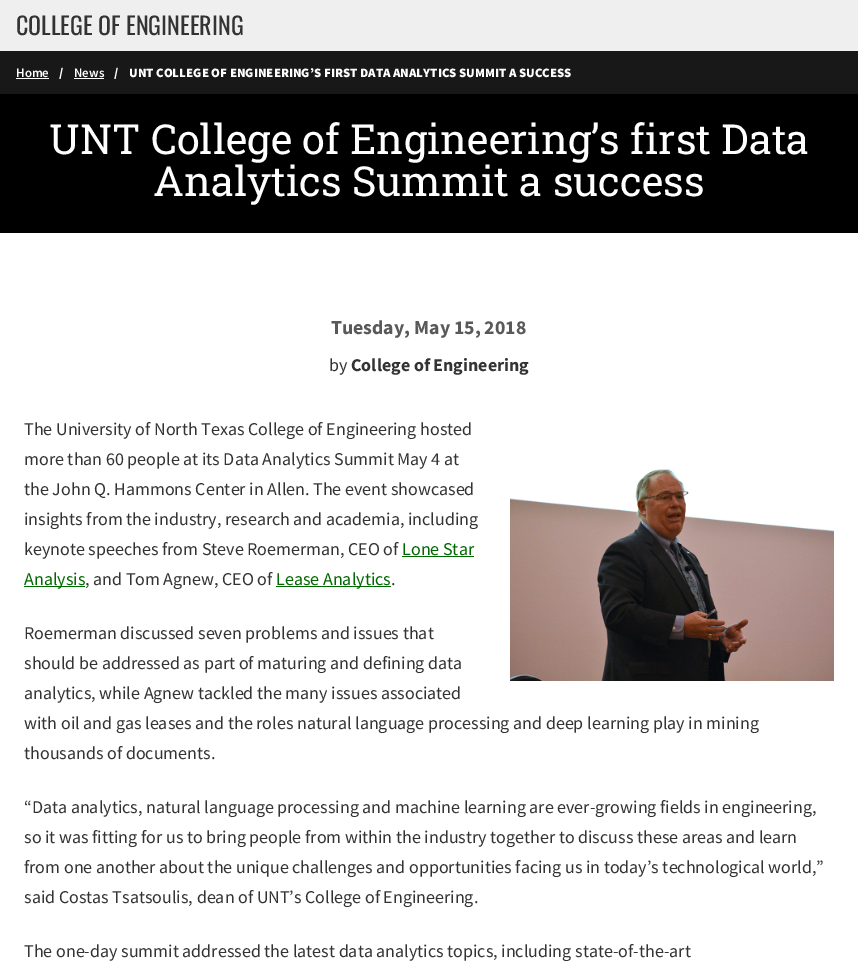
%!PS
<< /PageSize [858 963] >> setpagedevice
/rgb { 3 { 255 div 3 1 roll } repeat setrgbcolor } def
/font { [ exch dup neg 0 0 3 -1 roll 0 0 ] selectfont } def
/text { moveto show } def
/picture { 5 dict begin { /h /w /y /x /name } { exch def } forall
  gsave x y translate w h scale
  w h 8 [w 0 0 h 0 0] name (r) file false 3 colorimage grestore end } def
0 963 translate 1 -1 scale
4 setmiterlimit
255 255 255 rgb
0 0 858 963 rectfill
239 239 239 rgb
0 0 858 51 rectfill
24 24 24 rgb
0 51 858 43 rectfill
255 255 255 rgb
16 78 33 1 rectfill
74 78 30 1 rectfill
0 0 0 rgb
0 94 858 139 rectfill
(img_01.rgb) 510 469 324 212 picture
0 104 0 rgb
402 556 72 1 rectfill
24 586 61 1 rectfill
276 586 115 1 rectfill
/Oswald-Regular 24 font
51 51 51 rgb
(COLLEGE OF ENGINEERING) 16 35 text
/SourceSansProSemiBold-SemiBold 12.85 font
255 255 255 rgb
(Home) 16 77 text
/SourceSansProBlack-Black 12.85 font
(/) 59 77 text
/SourceSansProSemiBold-SemiBold 12.85 font
(News) 74 77 text
/SourceSansProBlack-Black 12.85 font
(/) 114 77 text
(UNT COLLEGE OF ENGINEERING’S FIRST DATA ANALYTICS SUMMIT A SUCCESS) 129 77 text
/RobotoSlab-Regular 41.4 font
(UNT College of Engineering’s first Data) 49 154 text
(Analytics Summit a success) 153 196 text
/SourceSansPro-Bold 19.75 font
89 89 89 rgb
(Tuesday, May 15, 2018) 331 334 text
/SourceSansPro-Regular 18 font
51 51 51 rgb
(by) 329 371 text
/SourceSansPro-Bold 18 font
(College of Engineering) 351 371 text
/SourceSansPro-Regular 18 font
(The University of North Texas College of Engineering hosted) 24 435 text
(more than 60 people at its Data Analytics Summit May 4 at) 24 465 text
(the John Q. Hammons Center in Allen. The event showcased) 24 495 text
(insights from the industry, research and academia, including) 24 525 text
(keynote speeches from Steve Roemerman, CEO of) 24 555 text
0 104 0 rgb
(Lone Star) 402 555 text
(Analysis) 24 585 text
51 51 51 rgb
(, and Tom Agnew, CEO of) 85 585 text
0 104 0 rgb
(Lease Analytics) 276 585 text
51 51 51 rgb
(.) 391 585 text
(Roemerman discussed seven problems and issues that) 24 639 text
(should be addressed as part of maturing and defining data) 24 669 text
(analytics, while Agnew tackled the many issues associated) 24 699 text
(with oil and gas leases and the roles natural language processing and deep learning play in mining) 24 729 text
(thousands of documents.) 24 759 text
(“Data analytics, natural language processing and machine learning are ever-growing fields in engineering,) 24 813 text
(so it was fitting for us to bring people from within the industry together to discuss these areas and learn) 24 843 text
(from one another about the unique challenges and opportunities facing us in today’s technological world,”) 24 873 text
(said Costas Tsatsoulis, dean of UNT’s College of Engineering.) 24 903 text
(The one-day summit addressed the latest data analytics topics, including state-of-the-art) 24 957 text
showpage
